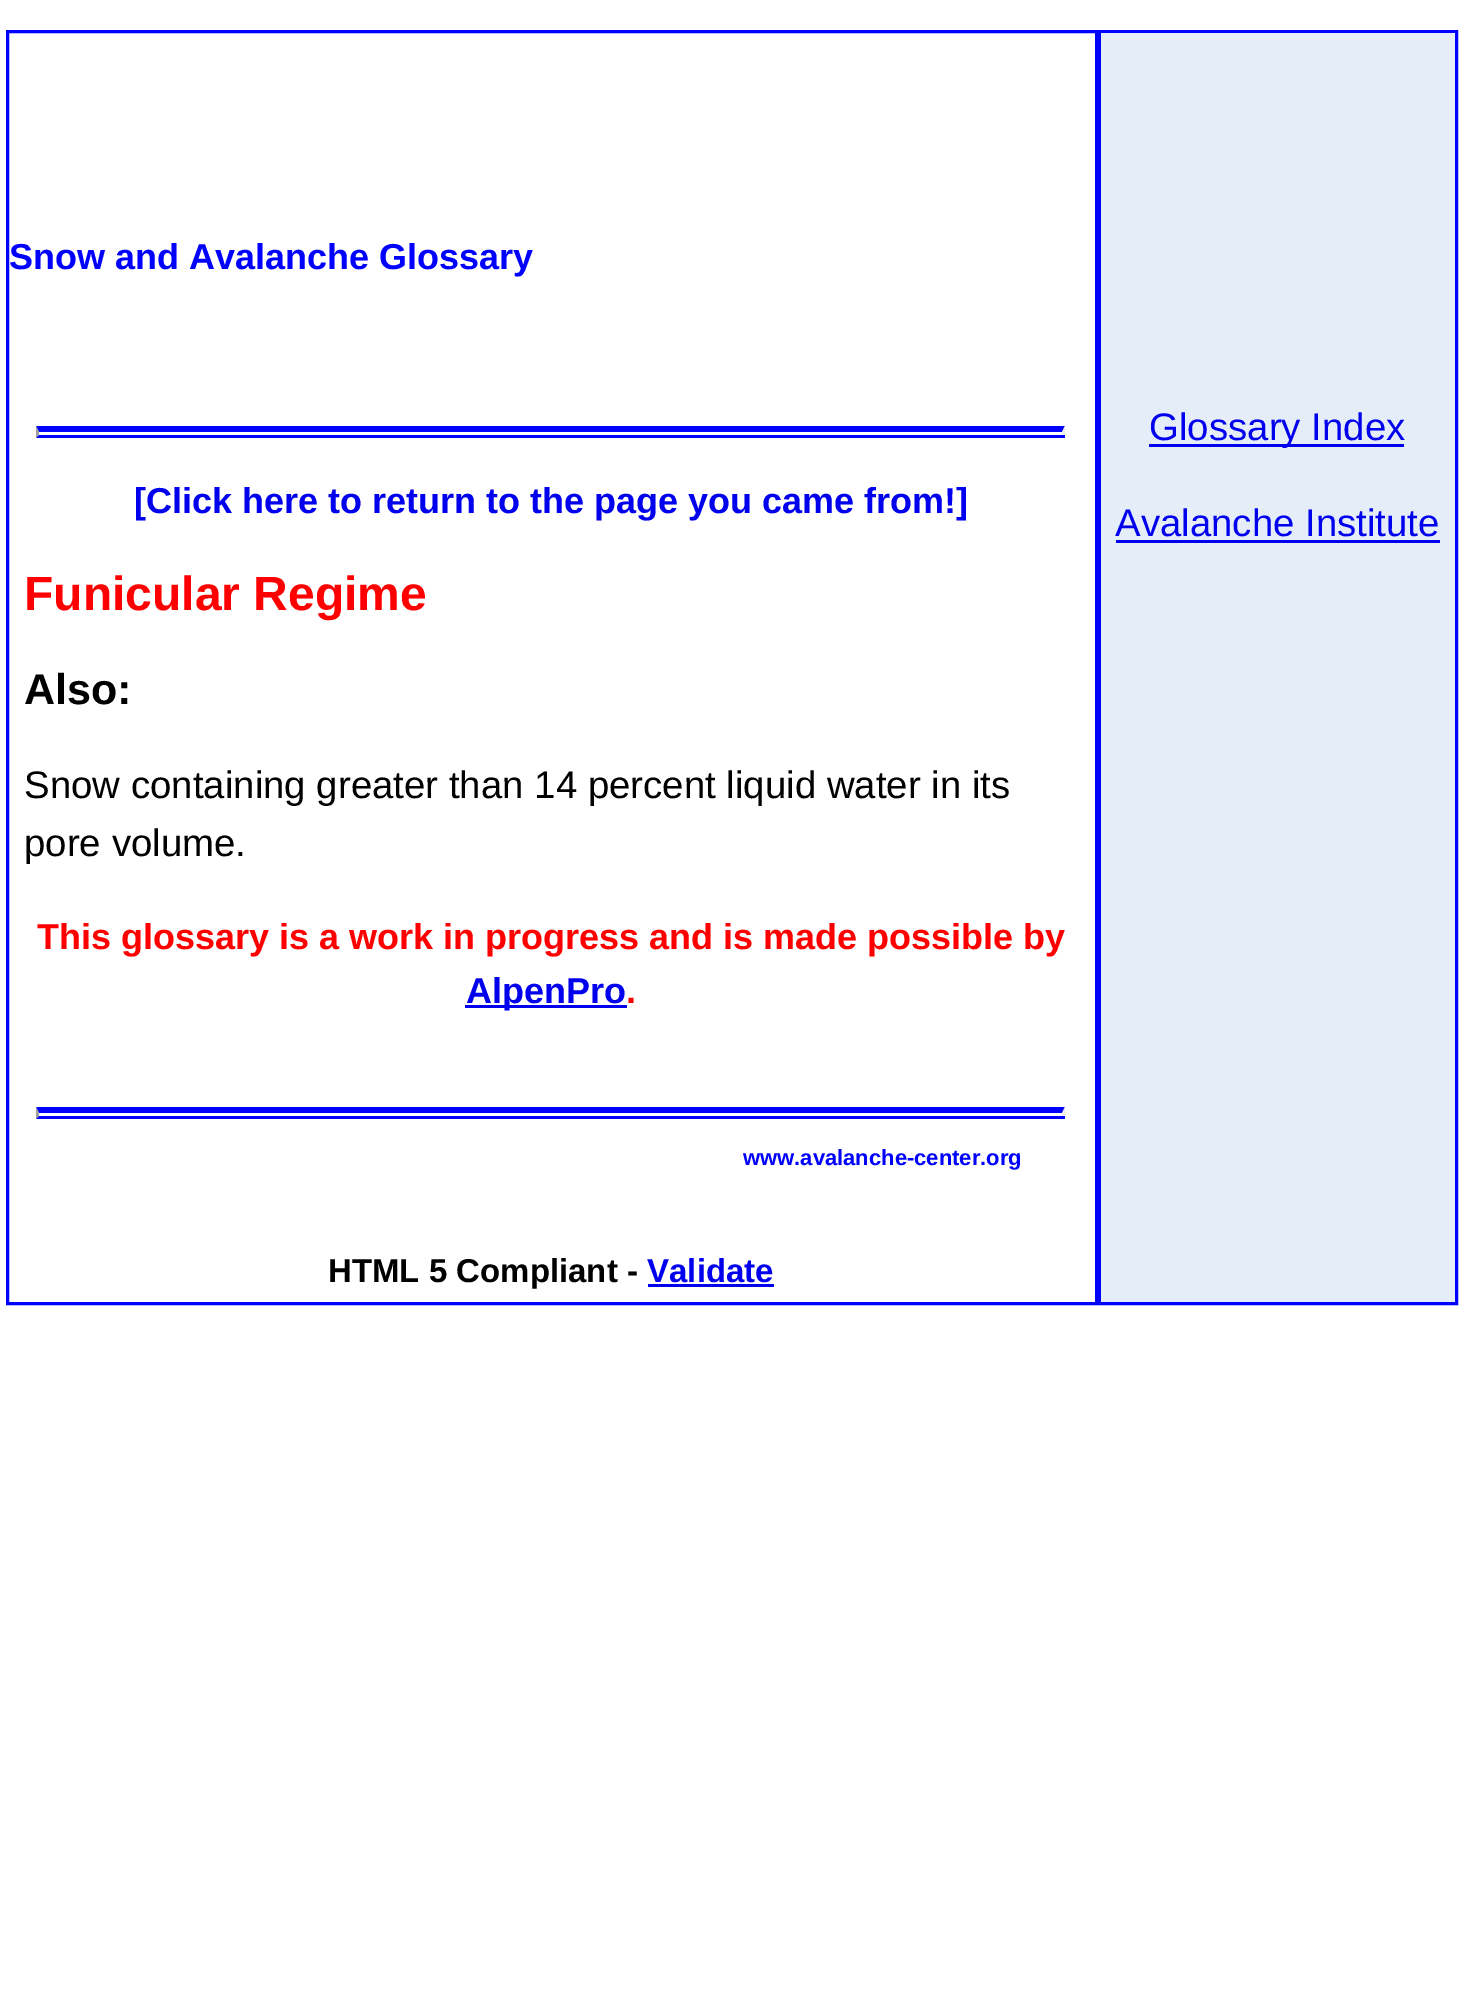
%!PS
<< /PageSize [1464 2000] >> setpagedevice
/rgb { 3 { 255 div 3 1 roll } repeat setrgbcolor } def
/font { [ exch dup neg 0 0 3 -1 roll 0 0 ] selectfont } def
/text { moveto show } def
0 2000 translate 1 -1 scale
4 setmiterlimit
255 255 255 rgb
0 0 1464 2000 rectfill
0 0 255 rgb
3 setlinewidth
7.5 31.5 1449 1272 rectstroke
36 426 moveto 1029 0 rlineto -3 6 rlineto -1023 0 rlineto closepath fill
238 238 238 rgb
1065 426 moveto 0 12 rlineto -3 -3 rlineto 0 -3 rlineto closepath fill
0 0 255 rgb
36 435 1029 3 rectfill
159 159 159 rgb
36 438 moveto 0 -12 rlineto 3 6 rlineto 0 3 rlineto closepath fill
0 0 238 rgb
465 1005 162 3 rectfill
229 237 249 rgb
1101 33 354 1269 rectfill
0 0 255 rgb
1095 33 6 1269 rectfill
0 0 238 rgb
1149 444 255 3 rectfill
1116 540 324 3 rectfill
0 0 255 rgb
36 1107 moveto 1029 0 rlineto -3 6 rlineto -1023 0 rlineto closepath fill
238 238 238 rgb
1065 1107 moveto 0 12 rlineto -3 -3 rlineto 0 -3 rlineto closepath fill
0 0 255 rgb
36 1116 1029 3 rectfill
159 159 159 rgb
36 1119 moveto 0 -12 rlineto 3 6 rlineto 0 3 rlineto closepath fill
0 0 238 rgb
648 1284 126 3 rectfill
/LiberationSans-Bold 36 font
0 0 255 rgb
(Snow and Avalanche Glossary) 9 269 text
0 0 238 rgb
([Click here to return to the page you came from!]) 134 513 text
/LiberationSans-Bold 48 font
255 0 0 rgb
(Funicular Regime) 24 610 text
/LiberationSans-Bold 43 font
0 0 0 rgb
(Also:) 24 704 text
/LiberationSans-Regular 38.4 font
(Snow containing greater than 14 percent liquid water in its) 24 798 text
(pore volume.) 24 856 text
/LiberationSans-Bold 36 font
255 0 0 rgb
(This glossary is a work in progress and is made possible by) 37 949 text
0 0 238 rgb
(AlpenPro) 466 1003 text
255 0 0 rgb
(.) 626 1003 text
/LiberationSans-Regular 38.4 font
0 0 238 rgb
(Glossary Index) 1149 440 text
(Avalanche Institute) 1115 536 text
/LiberationSans-Bold 22 font
0 0 255 rgb
(www.avalanche-center.org) 743 1165 text
/LiberationSans-Bold 33 font
0 0 0 rgb
(HTML 5 Compliant -) 328 1282 text
0 0 238 rgb
(Validate) 647 1282 text
showpage
